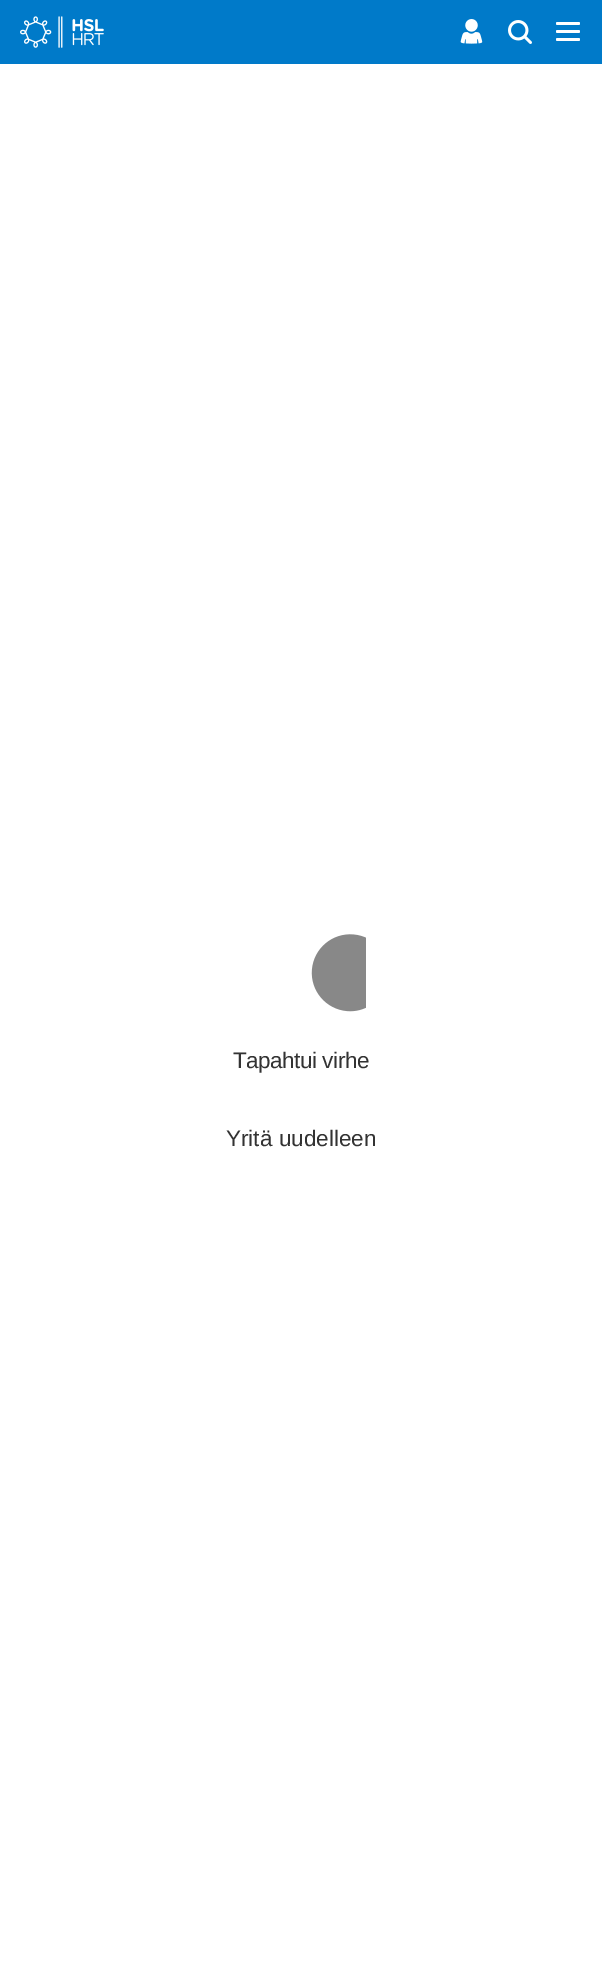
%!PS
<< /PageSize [602 1975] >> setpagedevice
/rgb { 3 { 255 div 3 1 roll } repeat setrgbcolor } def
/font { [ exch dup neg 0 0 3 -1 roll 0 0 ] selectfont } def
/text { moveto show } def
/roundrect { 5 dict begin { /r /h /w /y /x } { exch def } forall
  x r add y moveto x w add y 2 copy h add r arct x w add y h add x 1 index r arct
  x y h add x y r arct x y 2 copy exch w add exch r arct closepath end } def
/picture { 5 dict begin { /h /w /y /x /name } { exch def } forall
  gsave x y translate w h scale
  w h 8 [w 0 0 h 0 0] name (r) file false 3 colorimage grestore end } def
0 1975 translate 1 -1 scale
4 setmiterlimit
255 255 255 rgb
0 0 602 1975 rectfill
0 122 201 rgb
0 0 602 64 rectfill
(img_01.rgb) 20 16 84 32 picture
(img_02.rgb) 460 19 23 25 picture
(img_03.rgb) 508 20 24 24 picture
255 255 255 rgb
556 22 24 3 1.5 roundrect fill
556 30 24 3 1.5 roundrect fill
556 38 24 3 1.5 roundrect fill
(img_04.rgb) 311 934 55 78 picture
/LiberationSans-Regular 22.5 font
51 51 51 rgb
233 1068 moveto -0.5 0 (Tapahtui virhe) ashow
(Yritä uudelleen) 226 1146 text
showpage
